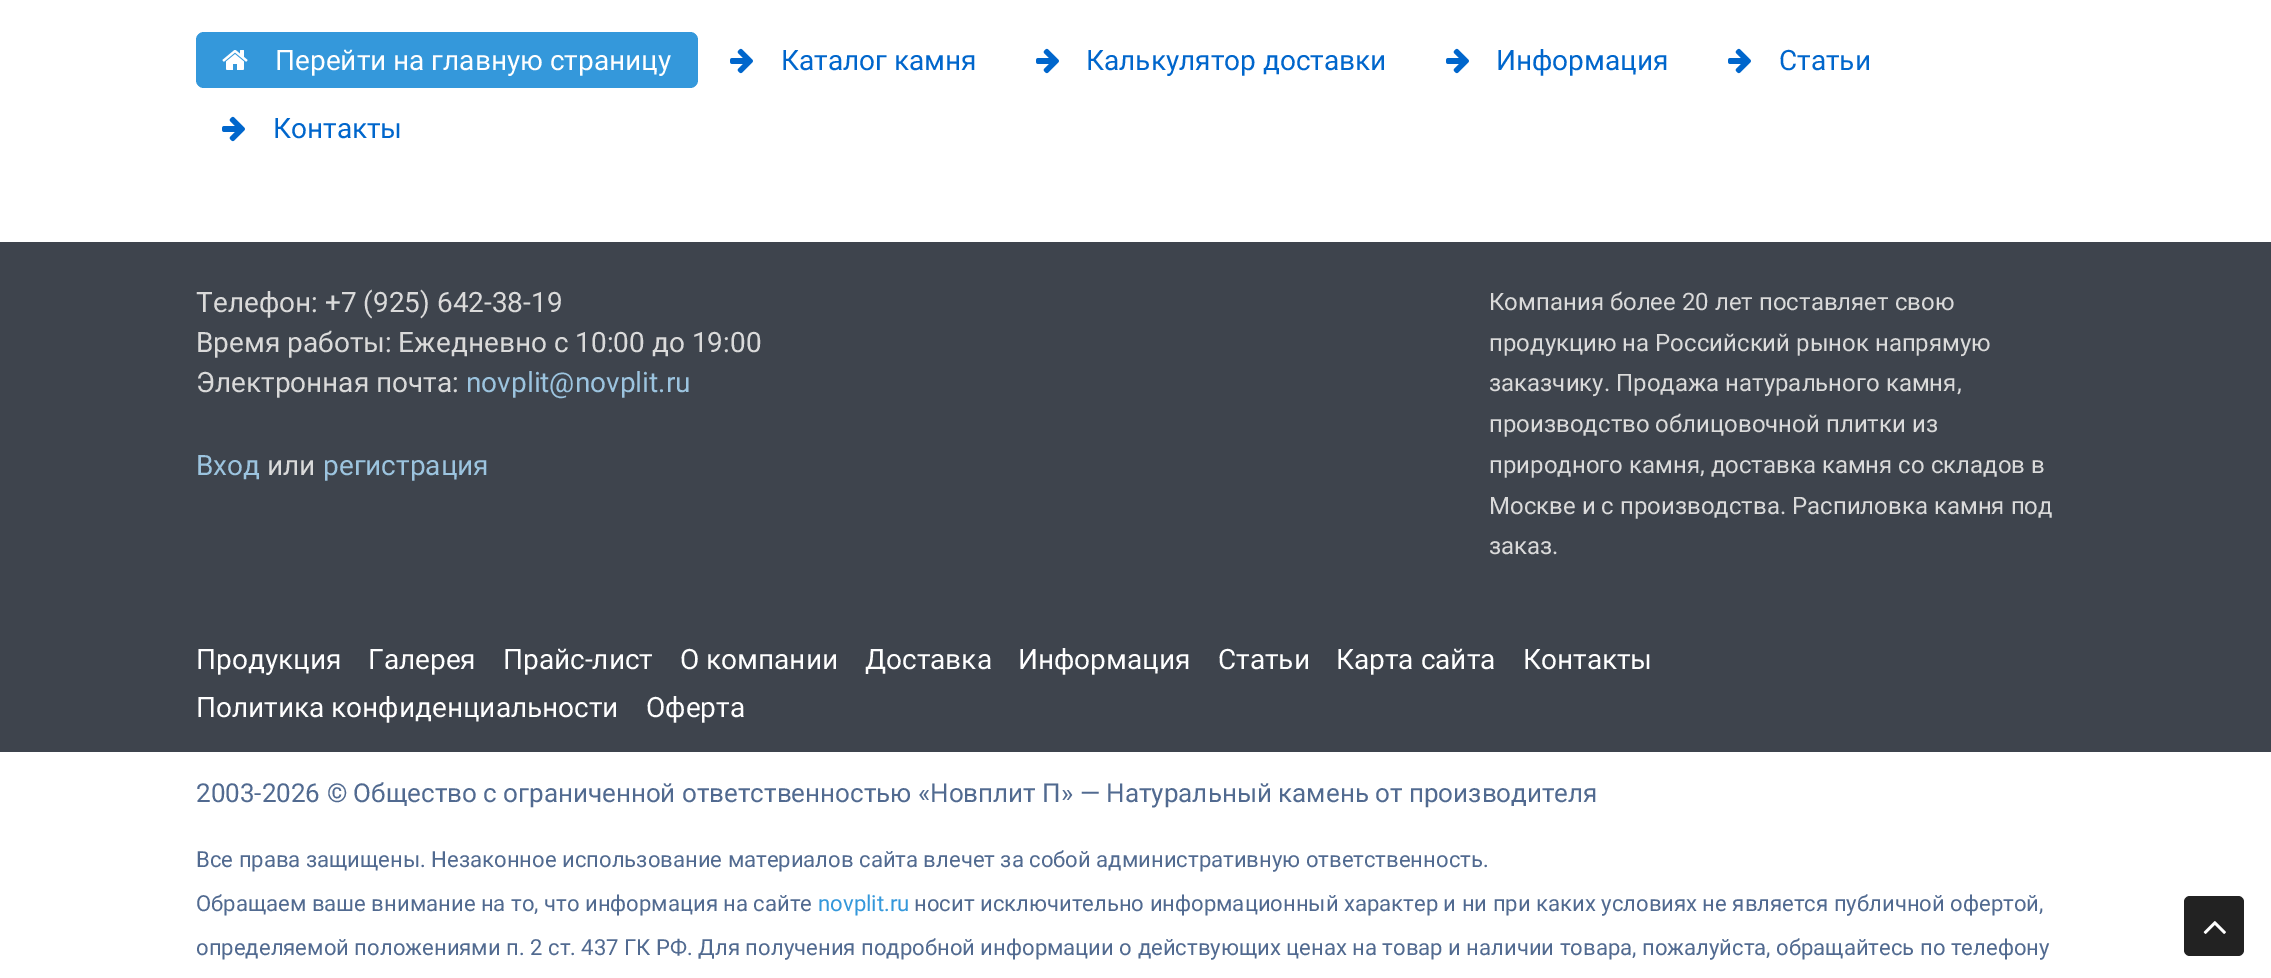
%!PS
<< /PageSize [2271 978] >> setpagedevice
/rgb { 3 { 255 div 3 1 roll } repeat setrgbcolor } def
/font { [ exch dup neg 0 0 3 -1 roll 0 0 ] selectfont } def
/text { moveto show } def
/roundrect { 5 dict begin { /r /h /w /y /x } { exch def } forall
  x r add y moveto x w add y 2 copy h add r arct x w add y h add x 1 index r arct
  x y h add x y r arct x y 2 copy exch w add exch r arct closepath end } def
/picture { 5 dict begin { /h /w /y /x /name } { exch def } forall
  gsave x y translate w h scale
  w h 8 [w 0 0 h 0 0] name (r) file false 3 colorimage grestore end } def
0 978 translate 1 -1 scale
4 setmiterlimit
255 255 255 rgb
0 0 2271 978 rectfill
52 152 219 rgb
196 32 502 56 8 roundrect fill
(img_01.rgb) 222 50 26 20 picture
(img_02.rgb) 730 48 23 26 picture
(img_02.rgb) 1036 48 23 26 picture
(img_02.rgb) 1446 48 23 26 picture
(img_02.rgb) 1728 48 23 26 picture
(img_02.rgb) 222 116 23 26 picture
62 68 77 rgb
0 242 2271 510 rectfill
34 34 34 rgb
2184 896 60 60 6 roundrect fill
(img_03.rgb) 2203 921 23 13 picture
/Roboto-Regular 28 font
255 255 255 rgb
(Перейти на главную страницу) 275 70 text
0 102 204 rgb
(Каталог камня) 781 70 text
(Калькулятор доставки) 1086 70 text
(Информация) 1496 70 text
(Статьи) 1779 70 text
(Контакты) 273 138 text
218 218 218 rgb
(Телефон: +7 \(925\) 642-38-19) 196 312 text
(Время работы: Ежедневно с 10:00 до 19:00) 196 352 text
(Электронная почта:) 196 392 text
156 196 223 rgb
(novplit@novplit.ru) 466 392 text
(Вход) 196 475 text
218 218 218 rgb
(или) 267 475 text
156 196 223 rgb
(регистрация) 323 475 text
/Roboto-Regular 24 font
218 218 218 rgb
(Компания более 20 лет поставляет свою) 1489 310 text
(продукцию на Российский рынок напрямую) 1489 351 text
(заказчику. Продажа натурального камня,) 1489 391 text
(производство облицовочной плитки из) 1489 432 text
(природного камня, доставка камня со складов в) 1489 473 text
(Москве и с производства. Распиловка камня под) 1489 514 text
(заказ.) 1489 554 text
/Roboto-Regular 28 font
255 255 255 rgb
(Продукция) 196 669 text
(Галерея) 368 669 text
(Прайс-лист) 503 669 text
(О компании) 680 669 text
(Доставка) 865 669 text
(Информация) 1018 669 text
(Статьи) 1218 669 text
(Карта сайта) 1336 669 text
(Контакты) 1523 669 text
(Политика конфиденциальности) 196 717 text
(Оферта) 646 717 text
/Roboto-Regular 26 font
81 106 144 rgb
(2003-2026 © Общество с ограниченной ответственностью «Новплит П» — Натуральный камень от производителя) 196 802 text
/Roboto-Regular 22.1 font
(Все права защищены. Незаконное использование материалов сайта влечет за собой административную ответственность.) 196 867 text
(Обращаем ваше внимание на то, что информация на сайте) 196 911 text
52 152 219 rgb
(novplit.ru) 818 911 text
81 106 144 rgb
(носит исключительно информационный характер и ни при каких условиях не является публичной офертой,) 914 911 text
(определяемой положениями п. 2 ст. 437 ГК РФ. Для получения подробной информации о действующих ценах на товар и наличии товара, пожалуйста, обращайтесь по телефону) 196 955 text
showpage
